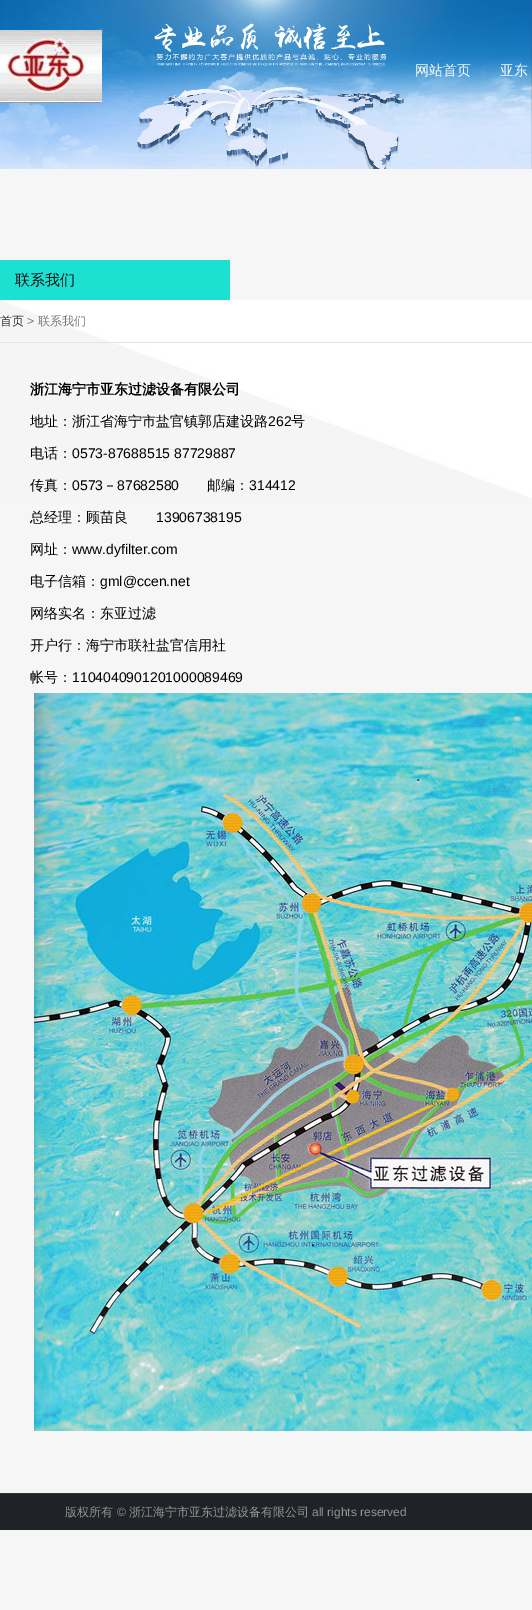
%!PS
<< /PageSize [532 1610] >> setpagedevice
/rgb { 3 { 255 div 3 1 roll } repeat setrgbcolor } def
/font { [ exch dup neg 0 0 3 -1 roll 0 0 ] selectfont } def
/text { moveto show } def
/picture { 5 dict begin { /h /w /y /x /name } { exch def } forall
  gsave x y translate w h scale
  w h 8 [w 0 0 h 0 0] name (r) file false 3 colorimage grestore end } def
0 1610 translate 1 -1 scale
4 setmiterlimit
246 246 246 rgb
0 0 532 1610 rectfill
(img_01.rgb) 0 0 532 169 picture
(img_02.rgb) 0 30 102 73 picture
(img_03.rgb) 3 300 529 198 picture
28 225 209 rgb
0 260 230 40 rectfill
(img_04.rgb) 34 693 498 738 picture
228 228 228 rgb
0 342 532 1 rectfill
31 34 38 rgb
0 1494 532 36 rectfill
54 57 60 rgb
0 1493 532 1 rectfill
/WenQuanYiZenHei-Medium 14 font
255 255 255 rgb
(网站首页) 415 75 text
(亚东) 500 75 text
/WenQuanYiZenHei-Medium 15 font
14 16 21 rgb
(联系我们) 15 285 text
/WenQuanYiZenHei-Bold 14 font
0 0 0 rgb
(浙江海宁市亚东过滤设备有限公司) 30 394 text
/WenQuanYiZenHei-Medium 14 font
(地址：浙江省海宁市盐官镇郭店建设路) 30 426 text
/LiberationSans-Regular 14 font
(262) 268 426 text
/WenQuanYiZenHei-Medium 14 font
(号) 291 426 text
(电话：) 30 458 text
/LiberationSans-Regular 14 font
(0573-87688515 87729887) 72 458 text
/WenQuanYiZenHei-Medium 14 font
(传真：) 30 490 text
/LiberationSans-Regular 14 font
(0573) 72 490 text
/WenQuanYiZenHei-Medium 14 font
(－) 103 490 text
/LiberationSans-Regular 14 font
(87682580) 117 490 text
/WenQuanYiZenHei-Medium 14 font
(邮编：) 207 490 text
/LiberationSans-Regular 14 font
(314412) 249 490 text
/WenQuanYiZenHei-Medium 14 font
(总经理：顾苗良) 30 522 text
/LiberationSans-Regular 14 font
(13906738195) 156 522 text
/WenQuanYiZenHei-Medium 14 font
(网址：) 30 554 text
/LiberationSans-Regular 14 font
(www.dyfilter.com) 72 554 text
/WenQuanYiZenHei-Medium 14 font
(电子信箱：) 30 586 text
/LiberationSans-Regular 14 font
(gml@ccen.net) 100 586 text
/WenQuanYiZenHei-Medium 14 font
(网络实名：东亚过滤) 30 618 text
(开户行：海宁市联社盐官信用社) 30 650 text
(帐号：) 30 682 text
/LiberationSans-Regular 14 font
(1104040901201000089469) 72 682 text
/WenQuanYiZenHei-Medium 12 font
46 46 46 rgb
(首页) 0 325 text
/LiberationSans-Regular 12 font
119 119 119 rgb
(>) 27 325 text
/WenQuanYiZenHei-Medium 12 font
(联系我们) 38 325 text
149 149 149 rgb
(版权所有) 65 1516 text
/LiberationSans-Regular 12 font
(©) 117 1516 text
/WenQuanYiZenHei-Medium 12 font
(浙江海宁市亚东过滤设备有限公司) 129 1516 text
/LiberationSans-Regular 12 font
(all rights reserved) 312 1516 text
showpage
